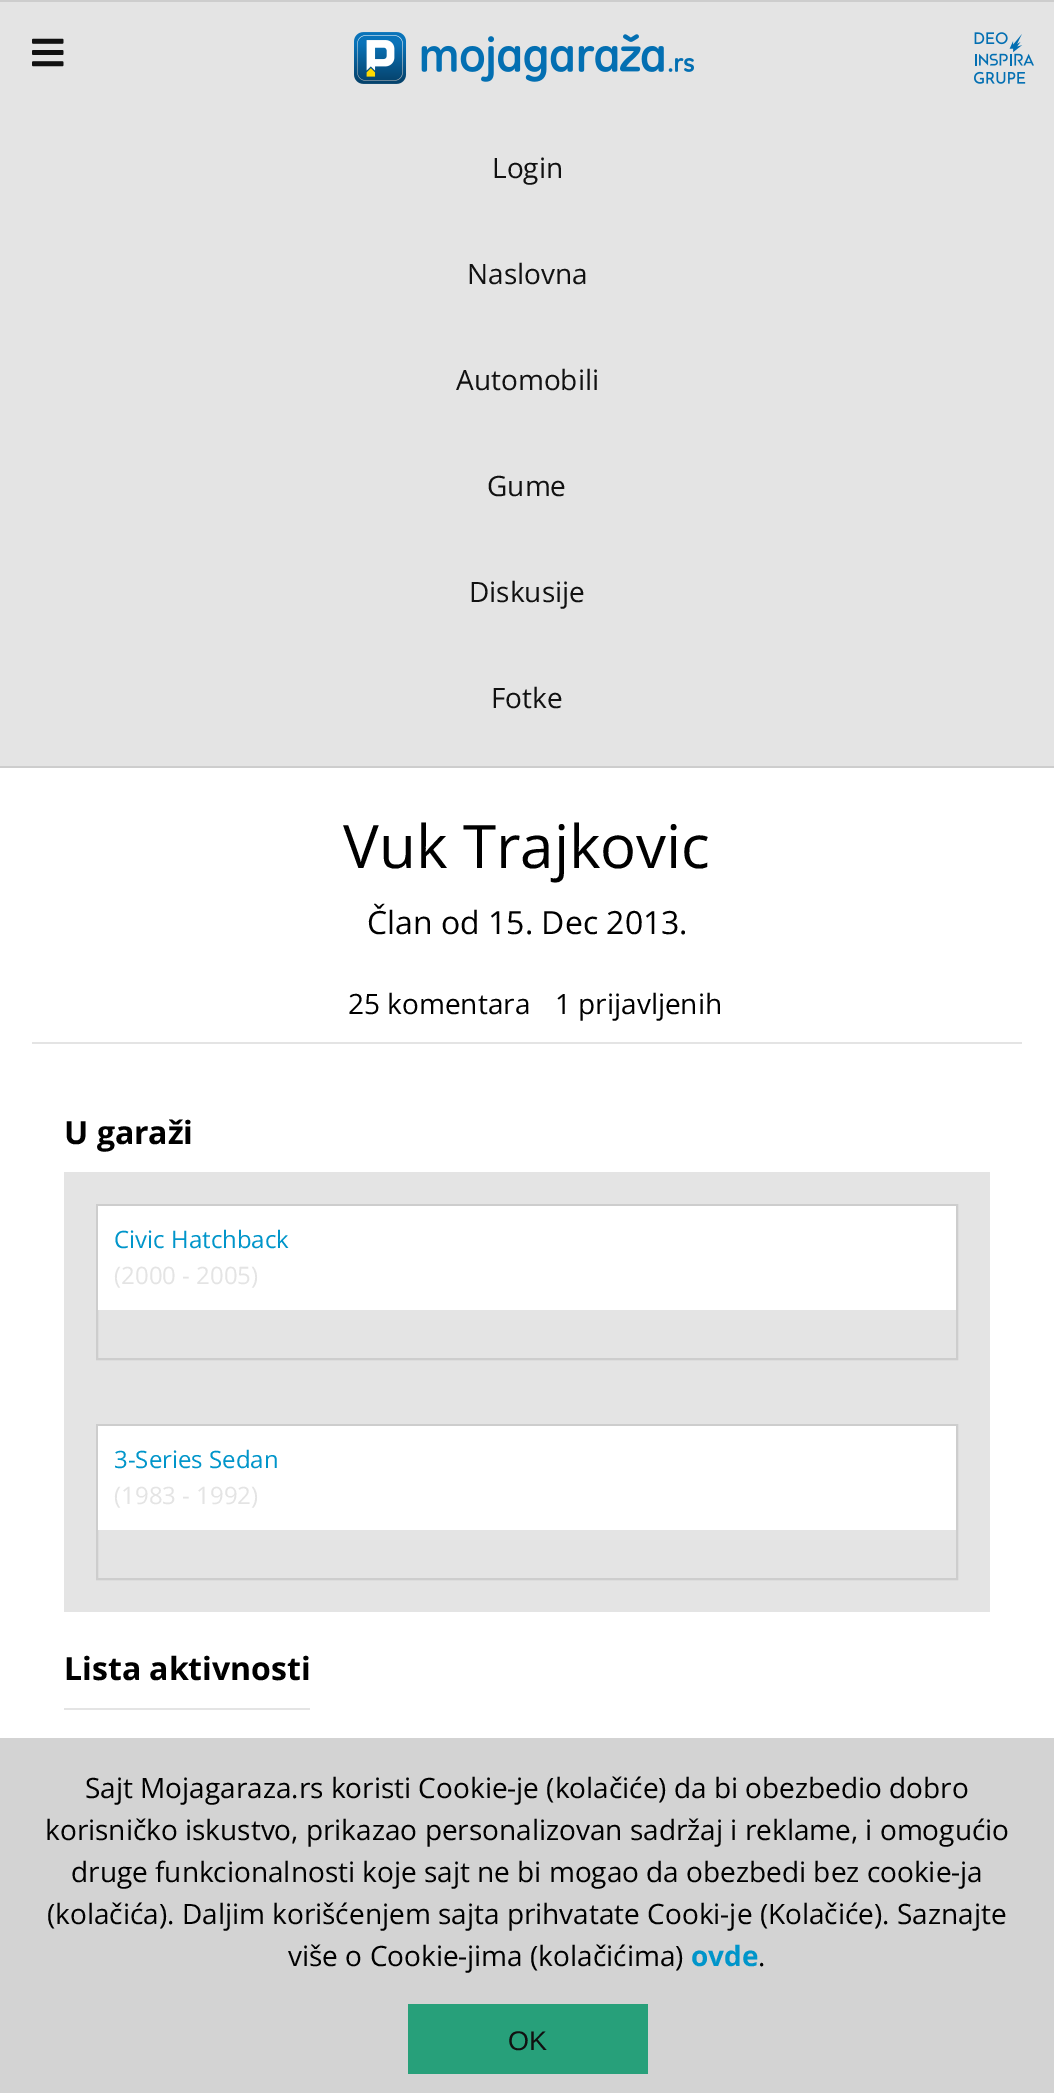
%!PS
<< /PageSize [1054 2093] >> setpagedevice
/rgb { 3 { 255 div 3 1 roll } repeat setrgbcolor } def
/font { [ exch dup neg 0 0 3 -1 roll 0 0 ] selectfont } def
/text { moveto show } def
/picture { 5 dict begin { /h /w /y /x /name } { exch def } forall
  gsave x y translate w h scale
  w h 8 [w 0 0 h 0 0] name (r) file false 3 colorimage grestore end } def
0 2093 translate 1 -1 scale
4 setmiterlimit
255 255 255 rgb
0 0 1054 2093 rectfill
228 228 228 rgb
0 2 1054 764 rectfill
205 205 205 rgb
0 0 1054 2 rectfill
0 766 1054 2 rectfill
(img_01.rgb) 32 38 32 29 picture
(img_02.rgb) 354 32 340 52 picture
(img_03.rgb) 974 32 60 52 picture
228 228 228 rgb
32 1042 990 2 rectfill
64 1172 926 440 rectfill
205 205 205 rgb
2 setlinewidth
97 1205 860 154 rectstroke
255 255 255 rgb
98 1206 858 104 rectfill
205 205 205 rgb
97 1425 860 154 rectstroke
255 255 255 rgb
98 1426 858 104 rectfill
228 228 228 rgb
64 1708 246 2 rectfill
211 211 211 rgb
0 1738 1054 355 rectfill
39 160 122 rgb
408 2004 240 70 rectfill
/OpenSans-Regular 28 font
17 17 17 rgb
(Login) 492 178 text
(Naslovna) 467 284 text
(Automobili) 456 390 text
(Gume) 487 496 text
(Diskusije) 469 602 text
(Fotke) 491 708 text
/OpenSans-Regular 60 font
0 0 0 rgb
(Vuk Trajkovic) 343 868 text
/OpenSans-Regular 32 font
(Član od 15. Dec 2013.) 367 934 text
/OpenSans-Regular 28 font
(25 komentara) 348 1014 text
(1 prijavljenih) 555 1014 text
/OpenSans-Bold 32 font
(U garaži) 64 1144 text
/OpenSans-Regular 24 font
0 149 202 rgb
(Civic Hatchback) 114 1248 text
228 228 228 rgb
(\(2000 - 2005\)) 114 1284 text
0 149 202 rgb
(3-Series Sedan) 114 1468 text
228 228 228 rgb
(\(1983 - 1992\)) 114 1504 text
/OpenSans-Bold 32 font
0 0 0 rgb
(Lista aktivnosti) 64 1680 text
/OpenSans-Regular 28 font
(Sajt Mojagaraza.rs koristi Cookie-je \(kolačiće\) da bi obezbedio dobro) 85 1798 text
(korisničko iskustvo, prikazao personalizovan sadržaj i reklame, i omogućio) 45 1840 text
(druge funkcionalnosti koje sajt ne bi mogao da obezbedi bez cookie-ja) 71 1882 text
(\(kolačića\). Daljim korišćenjem sajta prihvatate Cooki-je \(Kolačiće\). Saznajte) 47 1924 text
(više o Cookie-jima \(kolačićima\)) 288 1966 text
/OpenSans-Bold 28 font
0 149 202 rgb
(ovde) 691 1966 text
/OpenSans-Regular 28 font
0 0 0 rgb
(.) 758 1966 text
/LiberationSans-Regular 27 font
17 17 17 rgb
(OK) 508 2050 text
showpage
